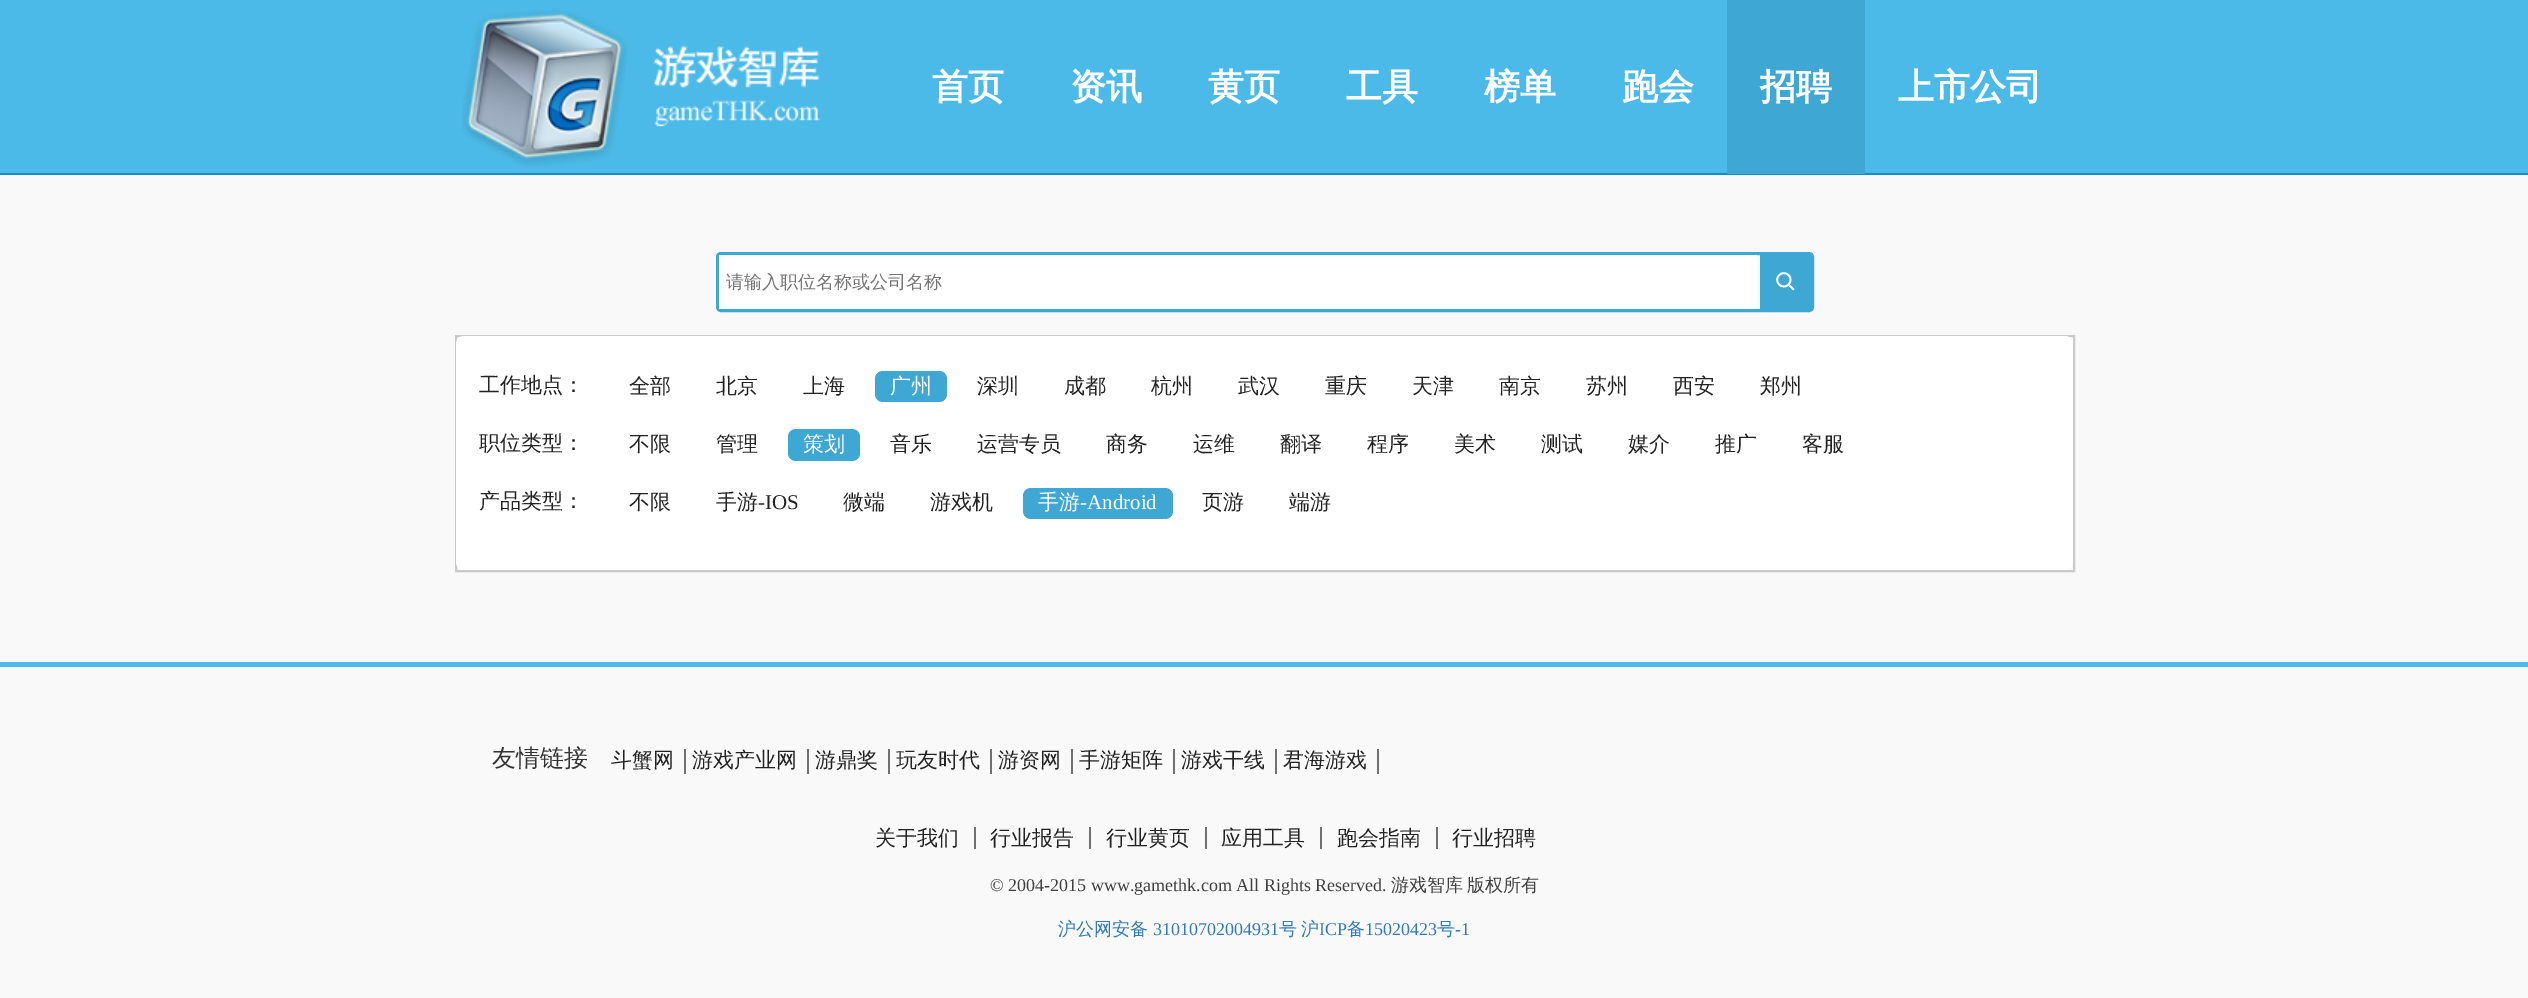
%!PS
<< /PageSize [2528 998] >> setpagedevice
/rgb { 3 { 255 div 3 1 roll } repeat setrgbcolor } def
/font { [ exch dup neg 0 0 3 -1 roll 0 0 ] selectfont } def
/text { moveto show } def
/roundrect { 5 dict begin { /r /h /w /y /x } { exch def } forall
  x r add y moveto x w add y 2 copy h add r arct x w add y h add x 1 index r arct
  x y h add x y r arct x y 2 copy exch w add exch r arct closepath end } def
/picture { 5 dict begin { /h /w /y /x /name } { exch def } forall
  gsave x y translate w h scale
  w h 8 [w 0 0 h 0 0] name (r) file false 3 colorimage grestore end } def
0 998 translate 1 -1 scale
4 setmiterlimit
249 249 249 rgb
0 0 2528 998 rectfill
76 186 232 rgb
0 0 2528 173 rectfill
16 142 194 rgb
0 173 2528 2 rectfill
(img_01.rgb) 462 10 359 157 picture
62 167 211 rgb
1727 0 138 174 rectfill
3 setlinewidth
717.5 253.5 1095 57 3.5 roundrect stroke
255 255 255 rgb
719 255 1038 54 rectfill
62 167 211 rgb
1760 255 51 54 rectfill
(img_02.rgb) 1776 272 19 19 picture
202 202 202 rgb
2 setlinewidth
456 336 1618 235 rectstroke
255 255 255 rgb
456 336 1617 234 8 roundrect fill
62 167 211 rgb
875 371 72 31 8 roundrect fill
788 429 72 32 8 roundrect fill
1023 488 150 31 8 roundrect fill
76 186 232 rgb
0 662 2528 5 rectfill
113 113 113 rgb
684 749 2 25 rectfill
807 749 2 25 rectfill
888 749 2 25 rectfill
990 749 2 25 rectfill
1071 749 2 25 rectfill
1173 749 2 25 rectfill
1275 749 2 25 rectfill
1377 749 2 25 rectfill
974 827 2 22 rectfill
1089 827 2 22 rectfill
1205 827 2 22 rectfill
1320 827 2 22 rectfill
1436 827 2 22 rectfill
/WenQuanYiZenHei-Bold 36 font
255 255 255 rgb
(首页) 932 99 text
(资讯) 1070 99 text
(黄页) 1208 99 text
(工具) 1346 99 text
(榜单) 1484 99 text
(跑会) 1622 99 text
(招聘) 1760 99 text
(上市公司) 1898 99 text
/WenQuanYiZenHei-Medium 18 font
117 117 117 rgb
(请输入职位名称或公司名称) 726 288 text
/WenQuanYiZenHei-Medium 21 font
35 35 35 rgb
(工作地点：) 479 392 text
(全部) 629 393 text
(北京) 716 393 text
(上海) 803 393 text
255 255 255 rgb
(广州) 890 393 text
35 35 35 rgb
(深圳) 977 393 text
(成都) 1064 393 text
(杭州) 1151 393 text
(武汉) 1238 393 text
(重庆) 1325 393 text
(天津) 1412 393 text
(南京) 1499 393 text
(苏州) 1586 393 text
(西安) 1673 393 text
(郑州) 1760 393 text
(职位类型：) 479 450 text
(不限) 629 451 text
(管理) 716 451 text
255 255 255 rgb
(策划) 803 451 text
35 35 35 rgb
(音乐) 890 451 text
(运营专员) 977 451 text
(商务) 1106 451 text
(运维) 1193 451 text
(翻译) 1280 451 text
(程序) 1367 451 text
(美术) 1454 451 text
(测试) 1541 451 text
(媒介) 1628 451 text
(推广) 1715 451 text
(客服) 1802 451 text
(产品类型：) 479 508 text
(不限) 629 509 text
(手游) 716 509 text
/LiberationSerif-Regular 21 font
(-IOS) 758 509 text
/WenQuanYiZenHei-Medium 21 font
(微端) 843 509 text
(游戏机) 930 509 text
255 255 255 rgb
(手游) 1038 509 text
/LiberationSerif-Regular 21 font
(-Android) 1080 509 text
/WenQuanYiZenHei-Medium 21 font
35 35 35 rgb
(页游) 1202 509 text
(端游) 1289 509 text
/WenQuanYiZenHei-Medium 24 font
51 51 51 rgb
(友情链接) 492 766 text
/WenQuanYiZenHei-Medium 21 font
35 35 35 rgb
(斗蟹网) 611 767 text
(游戏产业网) 692 767 text
(游鼎奖) 815 767 text
(玩友时代) 896 767 text
(游资网) 998 767 text
(手游矩阵) 1079 767 text
(游戏干线) 1181 767 text
(君海游戏) 1283 767 text
(关于我们) 875 845 text
(行业报告) 990 845 text
(行业黄页) 1106 845 text
(应用工具) 1221 845 text
(跑会指南) 1337 845 text
(行业招聘) 1452 845 text
/LiberationSerif-Regular 18 font
64 64 64 rgb
(© 2004-2015 www.gamethk.com All Rights Reserved.) 990 891 text
/WenQuanYiZenHei-Medium 18 font
(游戏智库) 1391 891 text
(版权所有) 1467 891 text
51 122 183 rgb
(沪公网安备) 1058 935 text
/LiberationSerif-Regular 18 font
(31010702004931) 1153 935 text
/WenQuanYiZenHei-Medium 18 font
(号) 1279 935 text
(沪) 1301 935 text
/LiberationSerif-Regular 18 font
(ICP) 1319 935 text
/WenQuanYiZenHei-Medium 18 font
(备) 1347 935 text
/LiberationSerif-Regular 18 font
(15020423) 1365 935 text
/WenQuanYiZenHei-Medium 18 font
(号) 1437 935 text
/LiberationSerif-Regular 18 font
(-1) 1455 935 text
showpage
